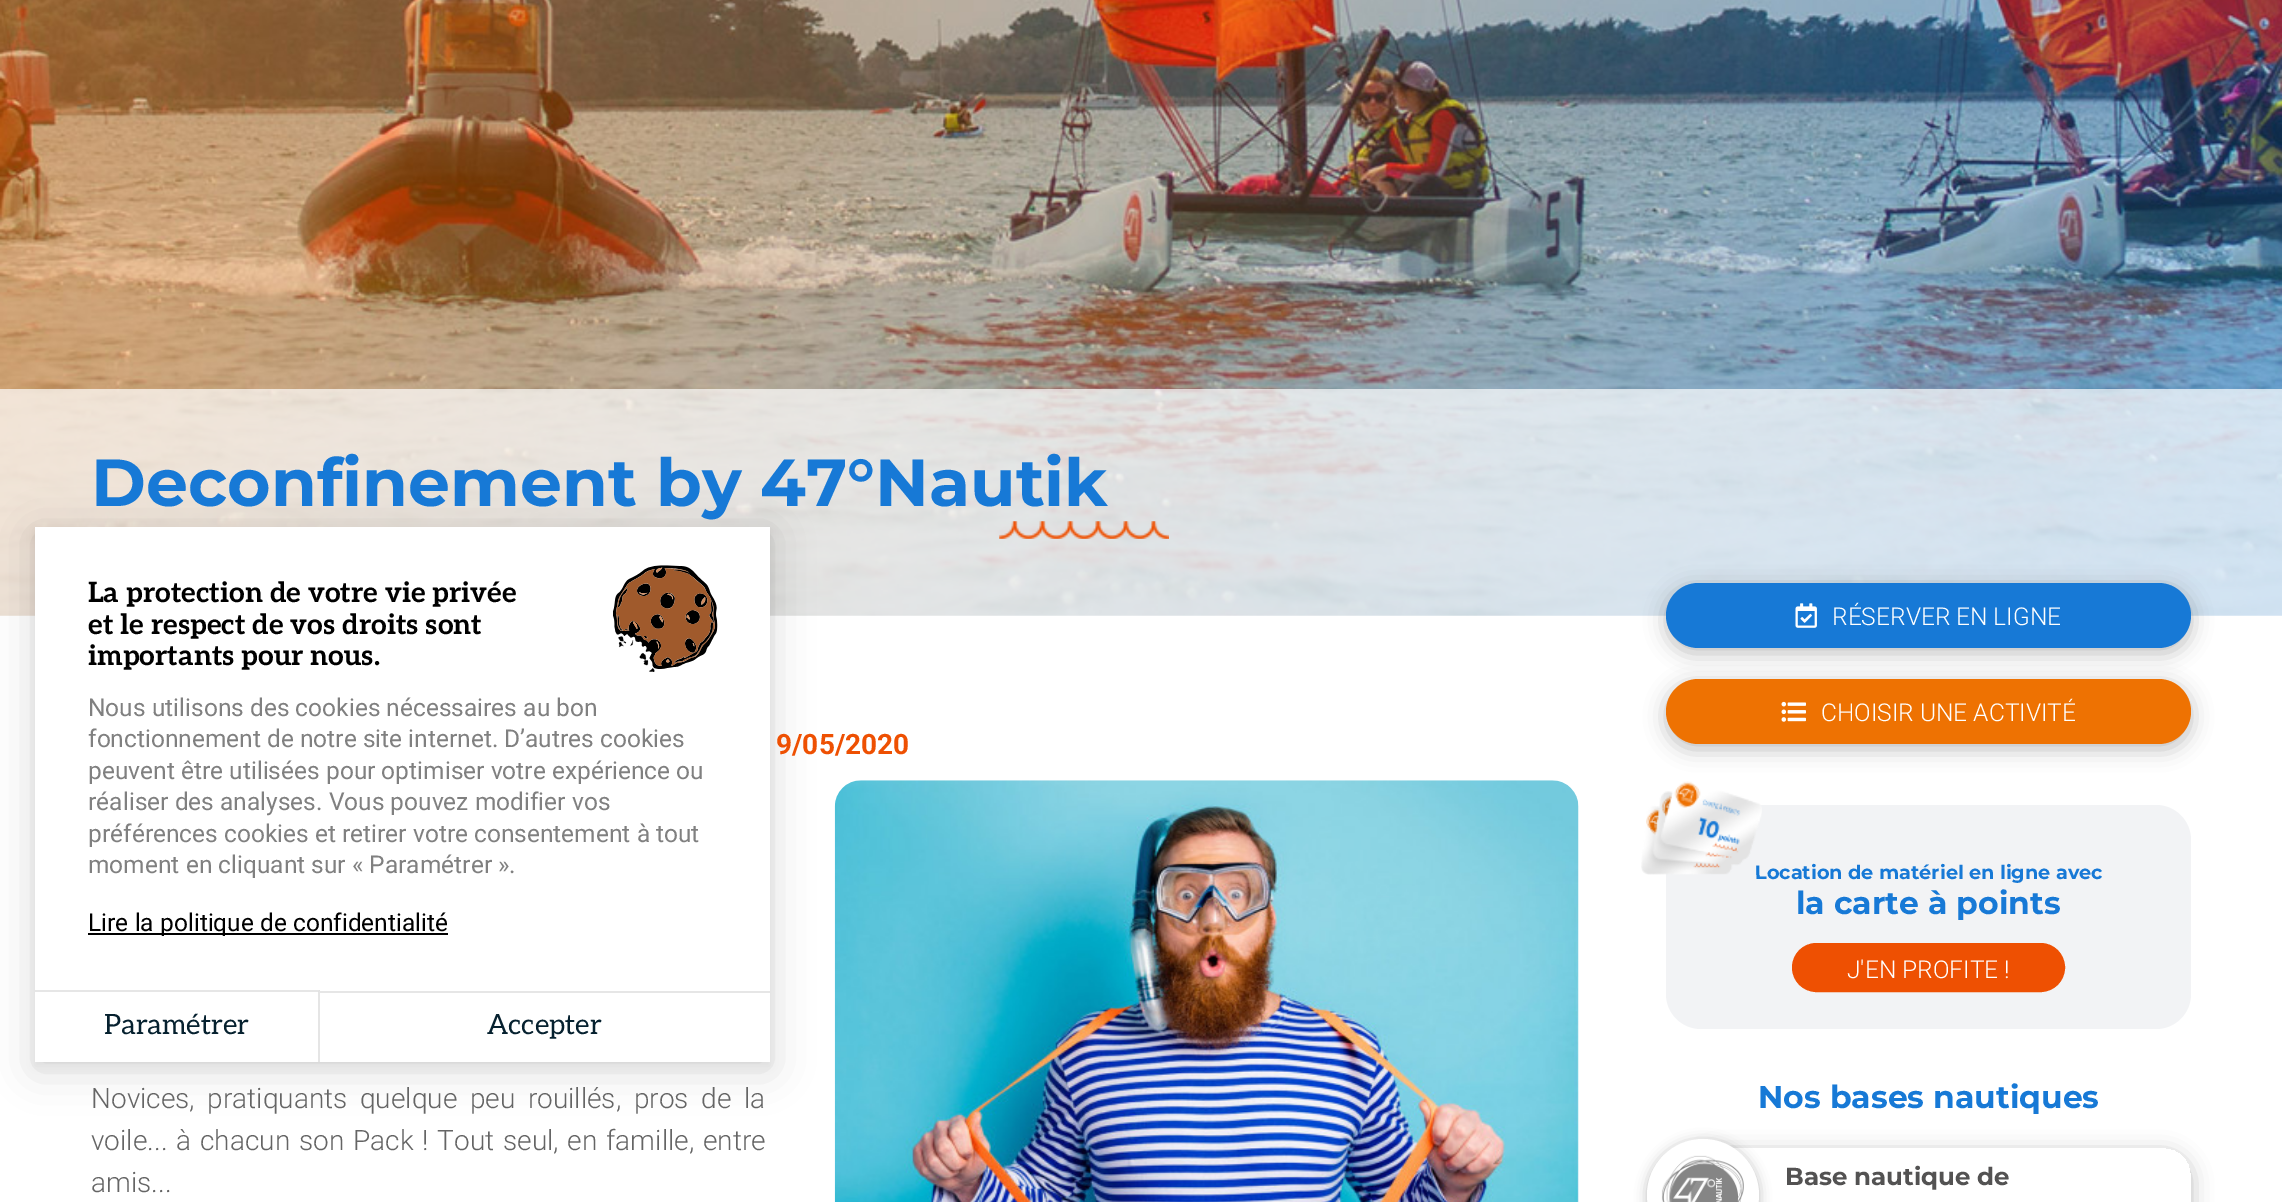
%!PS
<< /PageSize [2282 1202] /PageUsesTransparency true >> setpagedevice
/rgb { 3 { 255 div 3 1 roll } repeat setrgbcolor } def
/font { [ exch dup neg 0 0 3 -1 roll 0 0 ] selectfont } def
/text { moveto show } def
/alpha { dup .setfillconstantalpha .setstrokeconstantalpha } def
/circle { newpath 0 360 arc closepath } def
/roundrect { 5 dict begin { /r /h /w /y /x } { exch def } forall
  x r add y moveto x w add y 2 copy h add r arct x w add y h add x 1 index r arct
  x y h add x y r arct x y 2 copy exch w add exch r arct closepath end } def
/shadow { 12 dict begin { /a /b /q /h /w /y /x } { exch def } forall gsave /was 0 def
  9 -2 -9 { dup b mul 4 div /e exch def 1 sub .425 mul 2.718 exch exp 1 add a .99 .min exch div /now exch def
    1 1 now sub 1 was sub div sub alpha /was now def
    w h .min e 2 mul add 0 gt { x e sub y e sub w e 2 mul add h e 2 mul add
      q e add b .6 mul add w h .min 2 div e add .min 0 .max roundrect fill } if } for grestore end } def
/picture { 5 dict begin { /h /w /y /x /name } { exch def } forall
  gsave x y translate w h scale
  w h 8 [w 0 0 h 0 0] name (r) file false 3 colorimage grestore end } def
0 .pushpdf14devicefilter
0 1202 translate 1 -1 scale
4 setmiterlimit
255 255 255 rgb
0 0 2282 1202 rectfill
(img_01.rgb) 0 0 2282 616 picture
0.7 alpha
0 389 2282 227 rectfill
1 alpha
(img_02.rgb) 999 521 170 18 picture
(img_03.rgb) 834 780 745 422 picture
0 0 0 rgb
1666 588 525 65 32.5 10.5 0.25 shadow
23 121 214 rgb
1666 583 525 65 32.5 roundrect fill
(img_04.rgb) 1795 603 22 25 picture
0 0 0 rgb
1666 684 525 65 32.5 10.5 0.25 shadow
238 114 2 rgb
1666 679 525 65 32.5 roundrect fill
(img_05.rgb) 1781 701 25 21 picture
242 243 245 rgb
1666 805 525 224 35 roundrect fill
238 80 2 rgb
1794 945 269 45 22.5 roundrect gsave fill grestore
4 setlinewidth
stroke
gsave
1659 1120 moveto 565 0 rlineto 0 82 rlineto -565 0 rlineto closepath 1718 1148 moveto 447 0 rlineto 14.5 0 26 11.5 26 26 rcurveto 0 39 rlineto 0 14.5 -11.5 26 -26 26 rcurveto -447 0 rlineto -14.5 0 -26 -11.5 -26 -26 rcurveto 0 -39 rlineto 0 -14.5 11.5 -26 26 -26 rcurveto closepath eoclip newpath
0 0 0 rgb
1692 1153 499 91 26 10.5 0.25 shadow
grestore
0 0 0 rgb
1647 1141 112 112 56 6 0.25 shadow
255 255 255 rgb
1703 1195 56 circle fill
(img_07.rgb) 1661 1155 83 47 picture
0 0 0 rgb
35 530 735 536 0 5 0.05 shadow
35 534 735 535 0 21 0.15 shadow
255 255 255 rgb
35 527 735 535 rectfill
(img_08.rgb) 613 565 105 107 picture
0 0 0 rgb
88 933 360 2 rectfill
230 230 230 rgb
35 990 moveto 285 0 rlineto -2 2 rlineto -283 0 rlineto closepath fill
0.1 alpha
0 0 0 rgb
320 990 moveto 0 72 rlineto -2 0 rlineto 0 -70 rlineto closepath fill
1 alpha
230 230 230 rgb
320 991 450 2 rectfill
/Montserrat-Bold 66.5 font
23 121 214 rgb
(Deconfinement by 47°Nautik) 91 506 text
/Roboto-Bold 28 font
238 80 2 rgb
(9/05/2020) 776 754 text
/Roboto-Light 28 font
101 101 101 rgb
91 1108 moveto 5.75 0 32 (Novices, pratiquants quelque peu rouillés, pros de la) widthshow
91 1150 moveto 2 0 32 (voile... à chacun son Pack ! Tout seul, en famille, entre) widthshow
(amis...) 91 1192 text
/Roboto-Light 24.5 font
255 255 255 rgb
(RÉSERVER EN LIGNE) 1832 625 text
(CHOISIR UNE ACTIVITÉ) 1821 721 text
/Montserrat-Bold 19.25 font
23 121 214 rgb
(Location de matériel en ligne avec) 1755 879 text
(img_06.rgb) 1641 781 121 94 picture
/Montserrat-Bold 31.5 font
(la carte à points) 1796 914 text
/Roboto-Light 24.5 font
255 255 255 rgb
(J'EN PROFITE !) 1847 978 text
/Montserrat-Bold 31.5 font
23 121 214 rgb
(Nos bases nautiques) 1758 1108 text
/Montserrat-Bold 24.5 font
83 82 82 rgb
(Base nautique de) 1785 1185 text
/Aleo-Bold 28 font
0 0 0 rgb
(La protection de votre vie privée) 88 602 text
(et le respect de vos droits sont) 88 634 text
(importants pour nous.) 88 665 text
/Roboto-Regular 24.5 font
128 128 128 rgb
(Nous utilisons des cookies nécessaires au bon) 88 716 text
(fonctionnement de notre site internet. D’autres cookies) 88 747 text
(peuvent être utilisées pour optimiser votre expérience ou) 88 779 text
(réaliser des analyses. Vous pouvez modifier vos) 88 810 text
(préférences cookies et retirer votre consentement à tout) 88 842 text
(moment en cliquant sur « Paramétrer ».) 88 873 text
0 0 0 rgb
(Lire la politique de confidentialité) 88 931 text
/Aleo-Regular 28 font
6 33 47 rgb
(Paramétrer) 104 1034 text
(Accepter) 487 1034 text
.poppdf14devicefilter showpage
